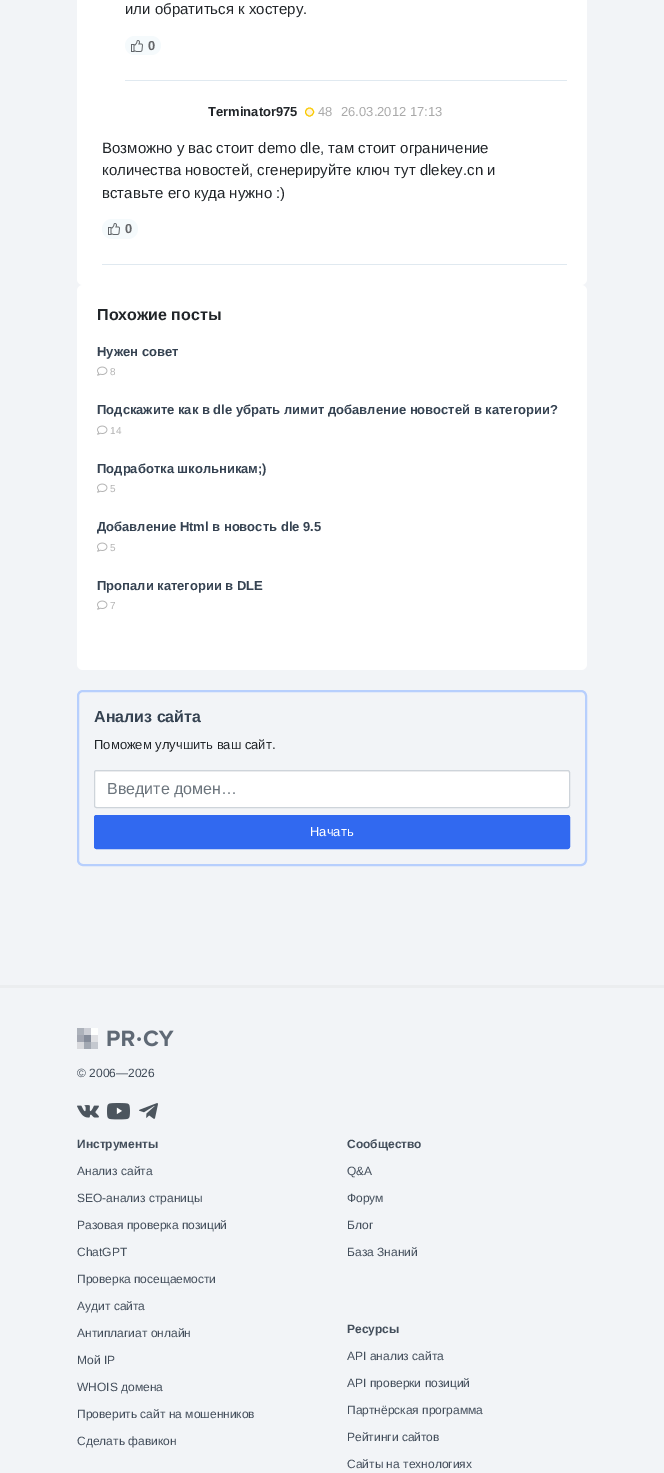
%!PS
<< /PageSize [664 1473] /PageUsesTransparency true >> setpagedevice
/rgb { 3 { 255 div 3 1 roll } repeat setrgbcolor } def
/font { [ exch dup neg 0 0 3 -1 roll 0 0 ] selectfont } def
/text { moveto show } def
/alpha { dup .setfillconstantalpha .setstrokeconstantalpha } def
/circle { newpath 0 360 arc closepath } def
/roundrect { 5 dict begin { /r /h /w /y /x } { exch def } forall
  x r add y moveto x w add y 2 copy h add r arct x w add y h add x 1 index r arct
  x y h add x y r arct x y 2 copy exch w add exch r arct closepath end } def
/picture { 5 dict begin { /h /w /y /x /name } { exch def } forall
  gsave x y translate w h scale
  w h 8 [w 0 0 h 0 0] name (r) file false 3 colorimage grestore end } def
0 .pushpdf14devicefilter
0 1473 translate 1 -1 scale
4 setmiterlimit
242 244 247 rgb
0 0 664 1473 rectfill
255 255 255 rgb
77 -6 510 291 6 roundrect fill
224 233 240 rgb
125 80 442 1 rectfill
245 250 252 rgb
125 36 36 19 9.5 roundrect fill
(img_01.rgb) 131 40 12 12 picture
224 233 240 rgb
102 264 465 1 rectfill
255 244 223 rgb
309.5 112 4 circle gsave fill grestore
249 201 0 rgb
stroke
245 250 252 rgb
102 219 36 20 10 roundrect fill
(img_01.rgb) 108 223 12 12 picture
255 255 255 rgb
77 285 510 385 6 roundrect fill
(img_02.rgb) 97 366 11 10 picture
(img_02.rgb) 97 425 11 10 picture
(img_02.rgb) 97 483 11 10 picture
(img_02.rgb) 97 542 11 10 picture
(img_02.rgb) 97 600 11 10 picture
183 207 253 rgb
2 setlinewidth
78 691 508 174 5 roundrect stroke
255 255 255 rgb
95 771 474 36 1.5 roundrect fill
0.04 alpha
0 0 0 rgb
96 772 moveto 472 0 rlineto 1 1 rlineto 0 -1 0 -2 -1 -2 rcurveto -472 0 rlineto -1 0 -1 1 -1 2 rcurveto closepath fill
1 alpha
206 212 218 rgb
1 setlinewidth
94.5 770.5 475 37 2 roundrect stroke
49 105 240 rgb
94.5 815.5 475 33 2 roundrect gsave fill grestore
stroke
235 237 239 rgb
0 985 664 3 rectfill
(img_03.rgb) 77 1028 97 21 picture
(img_04.rgb) 77 1105 22 13 picture
(img_05.rgb) 107 1103 23 17 picture
(img_06.rgb) 139 1103 19 16 picture
/LiberationSans-Regular 15 font
33 37 41 rgb
(или обратиться к хостеру.) 125 14 text
/LiberationSans-Bold 13 font
100 102 105 rgb
(0) 148 50 text
33 37 41 rgb
(Terminator975) 208 116 text
/LiberationSans-Regular 13 font
169 169 169 rgb
(48) 318 116 text
(26.03.2012 17:13) 341 116 text
/LiberationSans-Regular 15 font
33 37 41 rgb
(Возможно у вас стоит demo dle, там стоит ограничение) 102 153 text
(количества новостей, сгенерируйте ключ тут dlekey.cn и) 102 175 text
(вставьте его куда нужно :\)) 102 198 text
/LiberationSans-Bold 13 font
100 102 105 rgb
(0) 125 233 text
/LiberationSans-Bold 16 font
33 37 41 rgb
(Похожие посты) 97 320 text
/LiberationSans-Bold 13 font
53 66 81 rgb
(Нужен совет) 97 356 text
/LiberationSans-Regular 10 font
179 179 179 rgb
(8) 110 375 text
/LiberationSans-Bold 13 font
53 66 81 rgb
(Подскажите как в dle убрать лимит добавление новостей в категории?) 97 414 text
/LiberationSans-Regular 10 font
179 179 179 rgb
(14) 110 434 text
/LiberationSans-Bold 13 font
53 66 81 rgb
(Подработка школьникам;\)) 97 473 text
/LiberationSans-Regular 10 font
179 179 179 rgb
(5) 110 492 text
/LiberationSans-Bold 13 font
53 66 81 rgb
(Добавление Html в новость dle 9.5) 97 531 text
/LiberationSans-Regular 10 font
179 179 179 rgb
(5) 110 551 text
/LiberationSans-Bold 13 font
53 66 81 rgb
(Пропали категории в DLE) 97 590 text
/LiberationSans-Regular 10 font
179 179 179 rgb
(7) 110 609 text
/LiberationSans-Bold 16 font
53 66 81 rgb
(Анализ сайта) 94 722 text
/LiberationSans-Regular 13 font
33 37 41 rgb
(Поможем улучшить ваш сайт.) 94 749 text
/LiberationSans-Regular 16 font
108 117 125 rgb
(Введите домен…) 107 794 text
/LiberationSans-Regular 13 font
255 255 255 rgb
(Начать) 310 836 text
/LiberationSans-Regular 12 font
67 78 91 rgb
(© 2006—2026) 77 1077 text
/LiberationSans-Bold 12 font
(Инструменты) 77 1148 text
/LiberationSans-Regular 12 font
(Анализ сайта) 77 1175 text
(SEO-анализ страницы) 77 1202 text
(Разовая проверка позиций) 77 1229 text
(ChatGPT) 77 1256 text
(Проверка посещаемости) 77 1283 text
(Аудит сайта) 77 1310 text
(Антиплагиат онлайн) 77 1337 text
(Мой IP) 77 1364 text
(WHOIS домена) 77 1391 text
(Проверить сайт на мошенников) 77 1418 text
(Сделать фавикон) 77 1445 text
/LiberationSans-Bold 12 font
(Сообщество) 347 1148 text
/LiberationSans-Regular 12 font
(Q&A) 347 1175 text
(Форум) 347 1202 text
(Блог) 347 1229 text
(База Знаний) 347 1256 text
/LiberationSans-Bold 12 font
(Ресурсы) 347 1333 text
/LiberationSans-Regular 12 font
(API анализ сайта) 347 1360 text
(API проверки позиций) 347 1387 text
(Партнёрская программа) 347 1414 text
(Рейтинги сайтов) 347 1441 text
(Сайты на технологиях) 347 1468 text
.poppdf14devicefilter showpage
